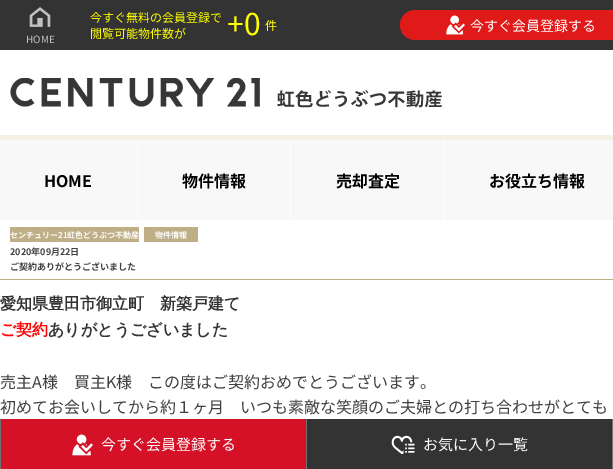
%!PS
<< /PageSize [613 469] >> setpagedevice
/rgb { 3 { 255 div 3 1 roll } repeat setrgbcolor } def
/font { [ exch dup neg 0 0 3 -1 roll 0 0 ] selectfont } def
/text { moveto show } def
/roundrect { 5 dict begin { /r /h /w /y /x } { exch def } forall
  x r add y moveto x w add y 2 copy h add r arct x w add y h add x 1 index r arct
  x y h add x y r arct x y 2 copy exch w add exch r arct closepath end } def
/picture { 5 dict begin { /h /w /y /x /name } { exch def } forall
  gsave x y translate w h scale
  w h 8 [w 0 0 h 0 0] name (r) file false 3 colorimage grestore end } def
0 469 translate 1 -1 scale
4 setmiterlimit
255 255 255 rgb
0 0 613 469 rectfill
51 51 51 rgb
0 0 613 50 rectfill
224 25 25 rgb
400 10 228 30 15 roundrect fill
(img_01.rgb) 446 15 19 20 picture
(img_02.rgb) 29 7 22 20 picture
(img_03.rgb) 10 78 432 30 picture
248 248 248 rgb
0 140 613 80 rectfill
245 241 230 rgb
0 135 613 5 rectfill
255 255 255 rgb
137 140 1 80 rectfill
290 140 1 80 rectfill
444 140 1 80 rectfill
190 175 135 rgb
10 227 129 15 rectfill
144 227 54 15 rectfill
0 279 613 1 rectfill
51 51 51 rgb
307 419 305 50 rectfill
112 112 112 rgb
306 419 1 50 rectfill
0 419 1 50 rectfill
212 17 38 rgb
1 419 305 50 rectfill
(img_04.rgb) 72 434 21 22 picture
112 112 112 rgb
612 419 1 50 rectfill
(img_05.rgb) 391 435 24 19 picture
/NotoSansCJKJP-Regular 12 font
255 255 0 rgb
(今すぐ無料の会員登録で) 90 22 text
(閲覧可能物件数が) 90 38 text
/NotoSansCJKJP-Regular 30 font
(+0) 227 35 text
/NotoSansCJKJP-Regular 12 font
(件) 265 30 text
/NotoSansCJKJP-Regular 14 font
255 255 255 rgb
(今すぐ会員登録する) 470 31 text
/NotoSansCJKJP-Regular 10 font
194 194 194 rgb
(HOME) 26 43 text
/NotoSansCJKJP-Bold 16 font
0 0 0 rgb
(HOME) 44 187 text
(物件情報) 182 187 text
(売却査定) 336 187 text
(お役立ち情報) 489 187 text
/NotoSansCJKJP-Bold 8 font
255 255 255 rgb
(センチュリー21虹色どうぶつ不動産) 10 238 text
(物件情報) 155 238 text
/NotoSansCJKJP-Bold 9 font
64 64 64 rgb
(2020年09月22日) 10 255 text
(ご契約ありがとうございました) 10 270 text
/WenQuanYiZenHei-Bold 16 font
51 51 51 rgb
(愛知県豊田市御立町) 0 309 text
(新築戸建て) 160 309 text
255 0 0 rgb
(ご契約) 0 335 text
51 51 51 rgb
(ありがとうございました) 48 335 text
/NotoSansCJKJP-Regular 16 font
64 64 64 rgb
(売主A様　買主K様　この度はご契約おめでとうございます。) 0 388 text
(初めてお会いしてから約１ヶ月　いつも素敵な笑顔のご夫婦との打ち合わせがとても) 0 413 text
/NotoSansCJKJP-Regular 15 font
255 255 255 rgb
(今すぐ会員登録する) 101 450 text
(お気に入り一覧) 423 450 text
showpage
